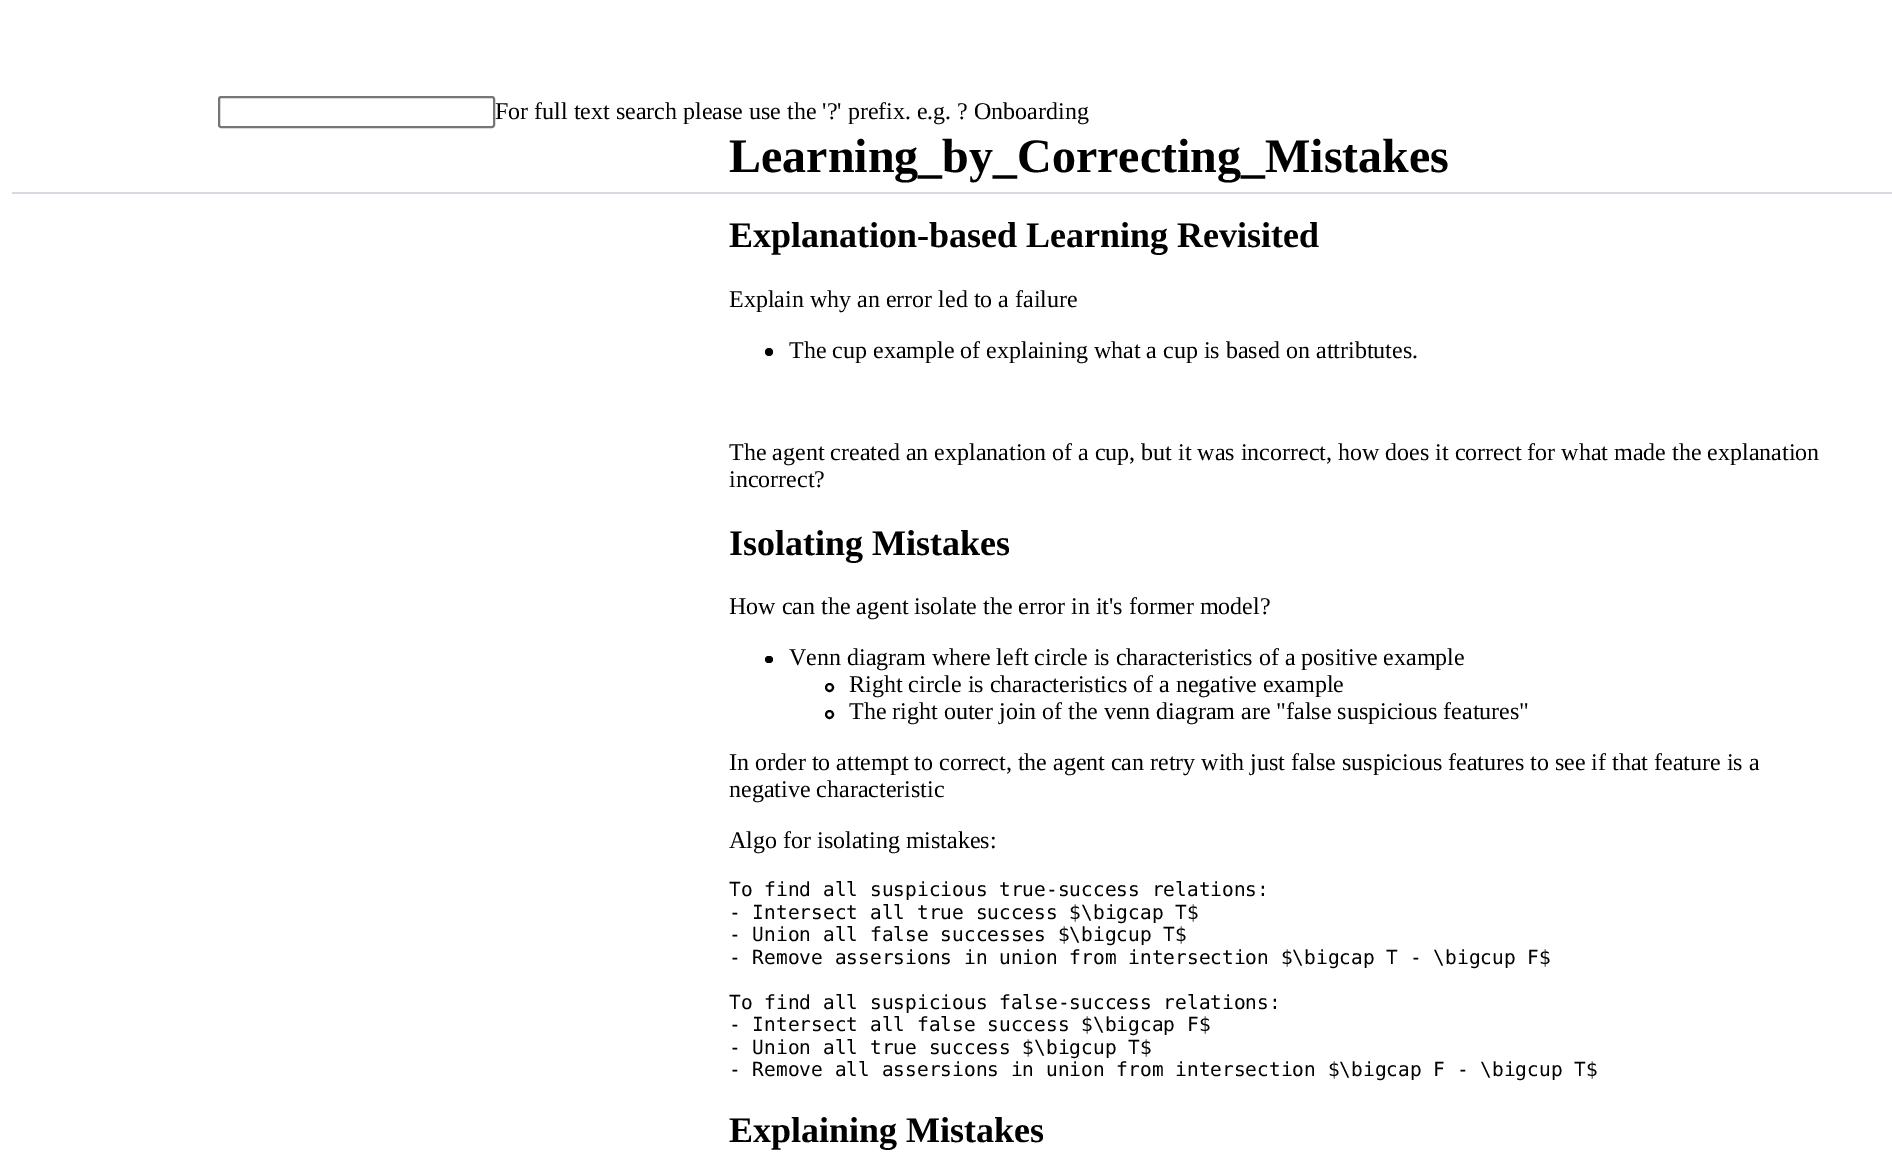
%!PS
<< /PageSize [1892 1176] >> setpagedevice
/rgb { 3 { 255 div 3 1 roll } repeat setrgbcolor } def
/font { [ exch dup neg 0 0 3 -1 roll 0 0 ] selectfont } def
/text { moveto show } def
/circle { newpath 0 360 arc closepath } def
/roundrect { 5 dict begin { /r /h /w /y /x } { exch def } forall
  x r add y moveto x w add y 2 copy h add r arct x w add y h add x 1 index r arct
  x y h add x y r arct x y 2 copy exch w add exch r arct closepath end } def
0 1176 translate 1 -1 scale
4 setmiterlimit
255 255 255 rgb
0 0 1892 1176 rectfill
212 218 223 rgb
12 192 1880 2 rectfill
118 118 118 rgb
2 setlinewidth
219 97 275 30 2 roundrect stroke
0 0 0 rgb
769 352 4 circle fill
765 656 8 7 3.5 roundrect fill
829.5 687.5 3.5 circle stroke
829.5 714.5 3.5 circle stroke
/LiberationSerif-Regular 24 font
(For full text search please use the '?' prefix. e.g. ? Onboarding) 495 119 text
/LiberationSerif-Bold 48 font
(Learning_by_Correcting_Mistakes) 729 172 text
/LiberationSerif-Bold 36 font
(Explanation-based Learning Revisited) 729 247 text
/LiberationSerif-Regular 24 font
(Explain why an error led to a failure) 729 307 text
(The cup example of explaining what a cup is based on attribtutes.) 789 358 text
(The agent created an explanation of a cup, but it was incorrect, how does it correct for what made the explanation) 729 460 text
(incorrect?) 729 487 text
/LiberationSerif-Bold 36 font
(Isolating Mistakes) 729 555 text
/LiberationSerif-Regular 24 font
(How can the agent isolate the error in it's former model?) 729 614 text
(Venn diagram where left circle is characteristics of a positive example) 789 665 text
(Right circle is characteristics of a negative example) 849 692 text
(The right outer join of the venn diagram are "false suspicious features") 849 719 text
(In order to attempt to correct, the agent can retry with just false suspicious features to see if that feature is a) 729 770 text
(negative characteristic) 729 797 text
(Algo for isolating mistakes:) 729 848 text
/DejaVuSansMono-Regular 19.5 font
(To find all suspicious true-success relations:) 729 896 text
(- Intersect all true success $\\bigcap T$) 729 919 text
(- Union all false successes $\\bigcup T$) 729 941 text
(- Remove assersions in union from intersection $\\bigcap T - \\bigcup F$) 729 964 text
(To find all suspicious false-success relations:) 729 1009 text
(- Intersect all false success $\\bigcap F$) 729 1031 text
(- Union all true success $\\bigcup T$) 729 1054 text
(- Remove all assersions in union from intersection $\\bigcap F - \\bigcup T$) 729 1076 text
/LiberationSerif-Bold 36 font
(Explaining Mistakes) 729 1142 text
showpage
